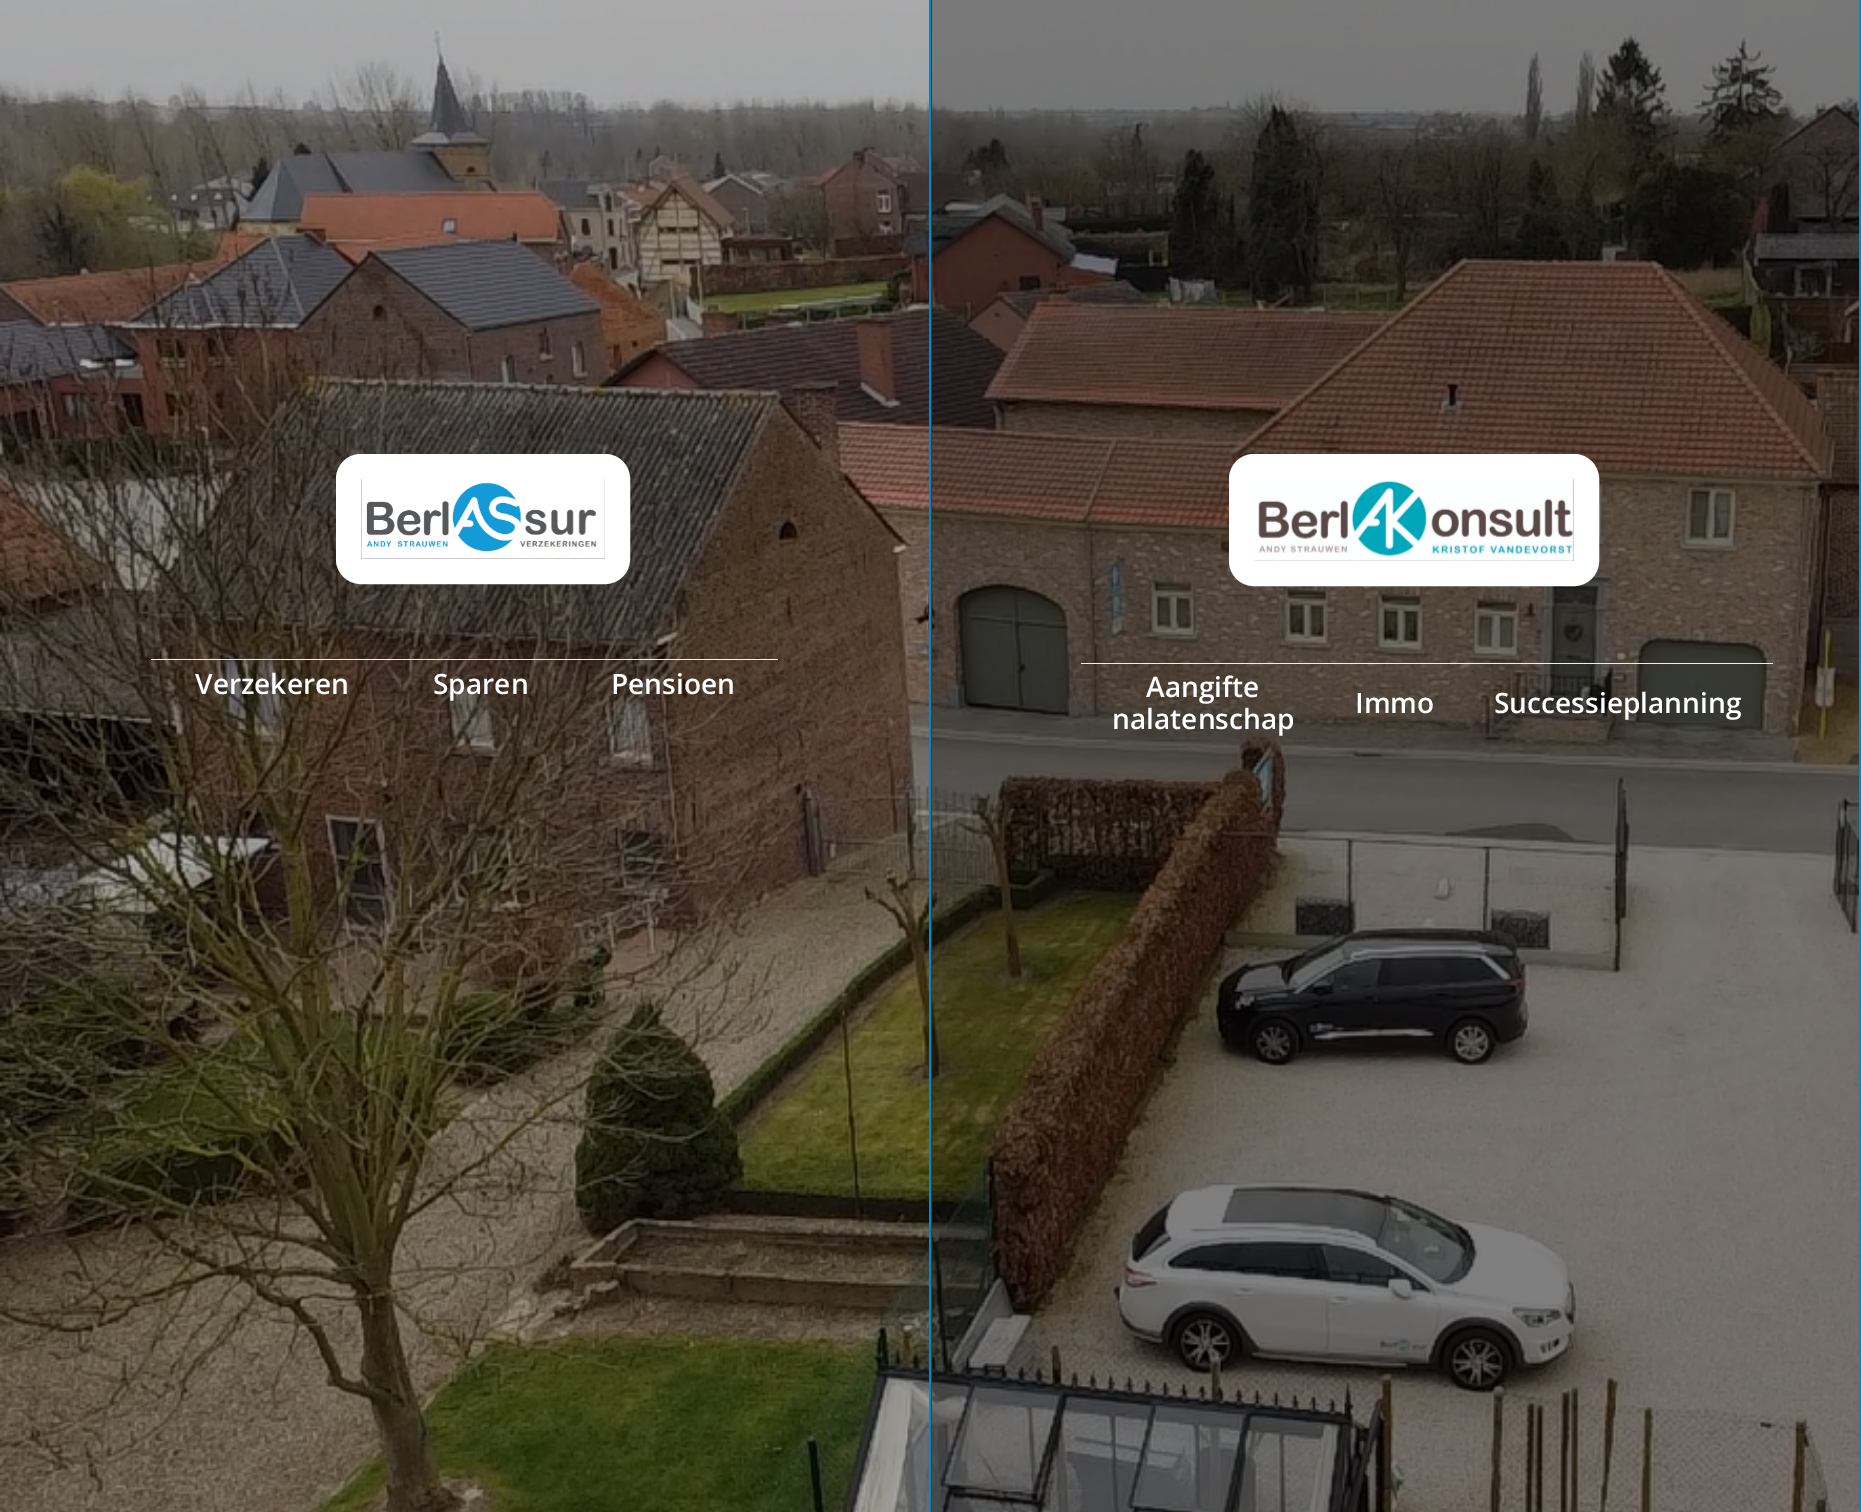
%!PS
<< /PageSize [1861 1512] /PageUsesTransparency true >> setpagedevice
/rgb { 3 { 255 div 3 1 roll } repeat setrgbcolor } def
/font { [ exch dup neg 0 0 3 -1 roll 0 0 ] selectfont } def
/text { moveto show } def
/alpha { dup .setfillconstantalpha .setstrokeconstantalpha } def
/roundrect { 5 dict begin { /r /h /w /y /x } { exch def } forall
  x r add y moveto x w add y 2 copy h add r arct x w add y h add x 1 index r arct
  x y h add x y r arct x y 2 copy exch w add exch r arct closepath end } def
/picture { 5 dict begin { /h /w /y /x /name } { exch def } forall
  gsave x y translate w h scale
  w h 8 [w 0 0 h 0 0] name (r) file false 3 colorimage grestore end } def
0 .pushpdf14devicefilter
0 1512 translate 1 -1 scale
4 setmiterlimit
255 255 255 rgb
0 0 1861 1512 rectfill
(img_01.rgb) 0 0 1859 1512 picture
0.3 alpha
0 0 0 rgb
0 0 929 1512 rectfill
1 alpha
0 136 204 rgb
929 0 3 1512 rectfill
255 255 255 rgb
25 setlinewidth
348.5 466.5 269 105 12.5 roundrect stroke
(img_02.rgb) 361 479 244 80 picture
238 238 238 rgb
151 659 627 1 rectfill
0.5 alpha
0 0 0 rgb
931 0 928 1512 rectfill
1 alpha
0 136 204 rgb
1859 0 2 1512 rectfill
255 255 255 rgb
1241.5 466.5 345 107 12.5 roundrect stroke
(img_03.rgb) 1254 479 320 82 picture
238 238 238 rgb
1081 663 692 1 rectfill
/OpenSans-SemiBold 28.1 font
255 255 255 rgb
(Verzekeren) 195 694 text
(Sparen) 433 694 text
(Pensioen) 611 694 text
(Aangifte) 1146 697 text
(nalatenschap) 1112 729 text
(Immo) 1355 713 text
(Successieplanning) 1494 713 text
.poppdf14devicefilter showpage
